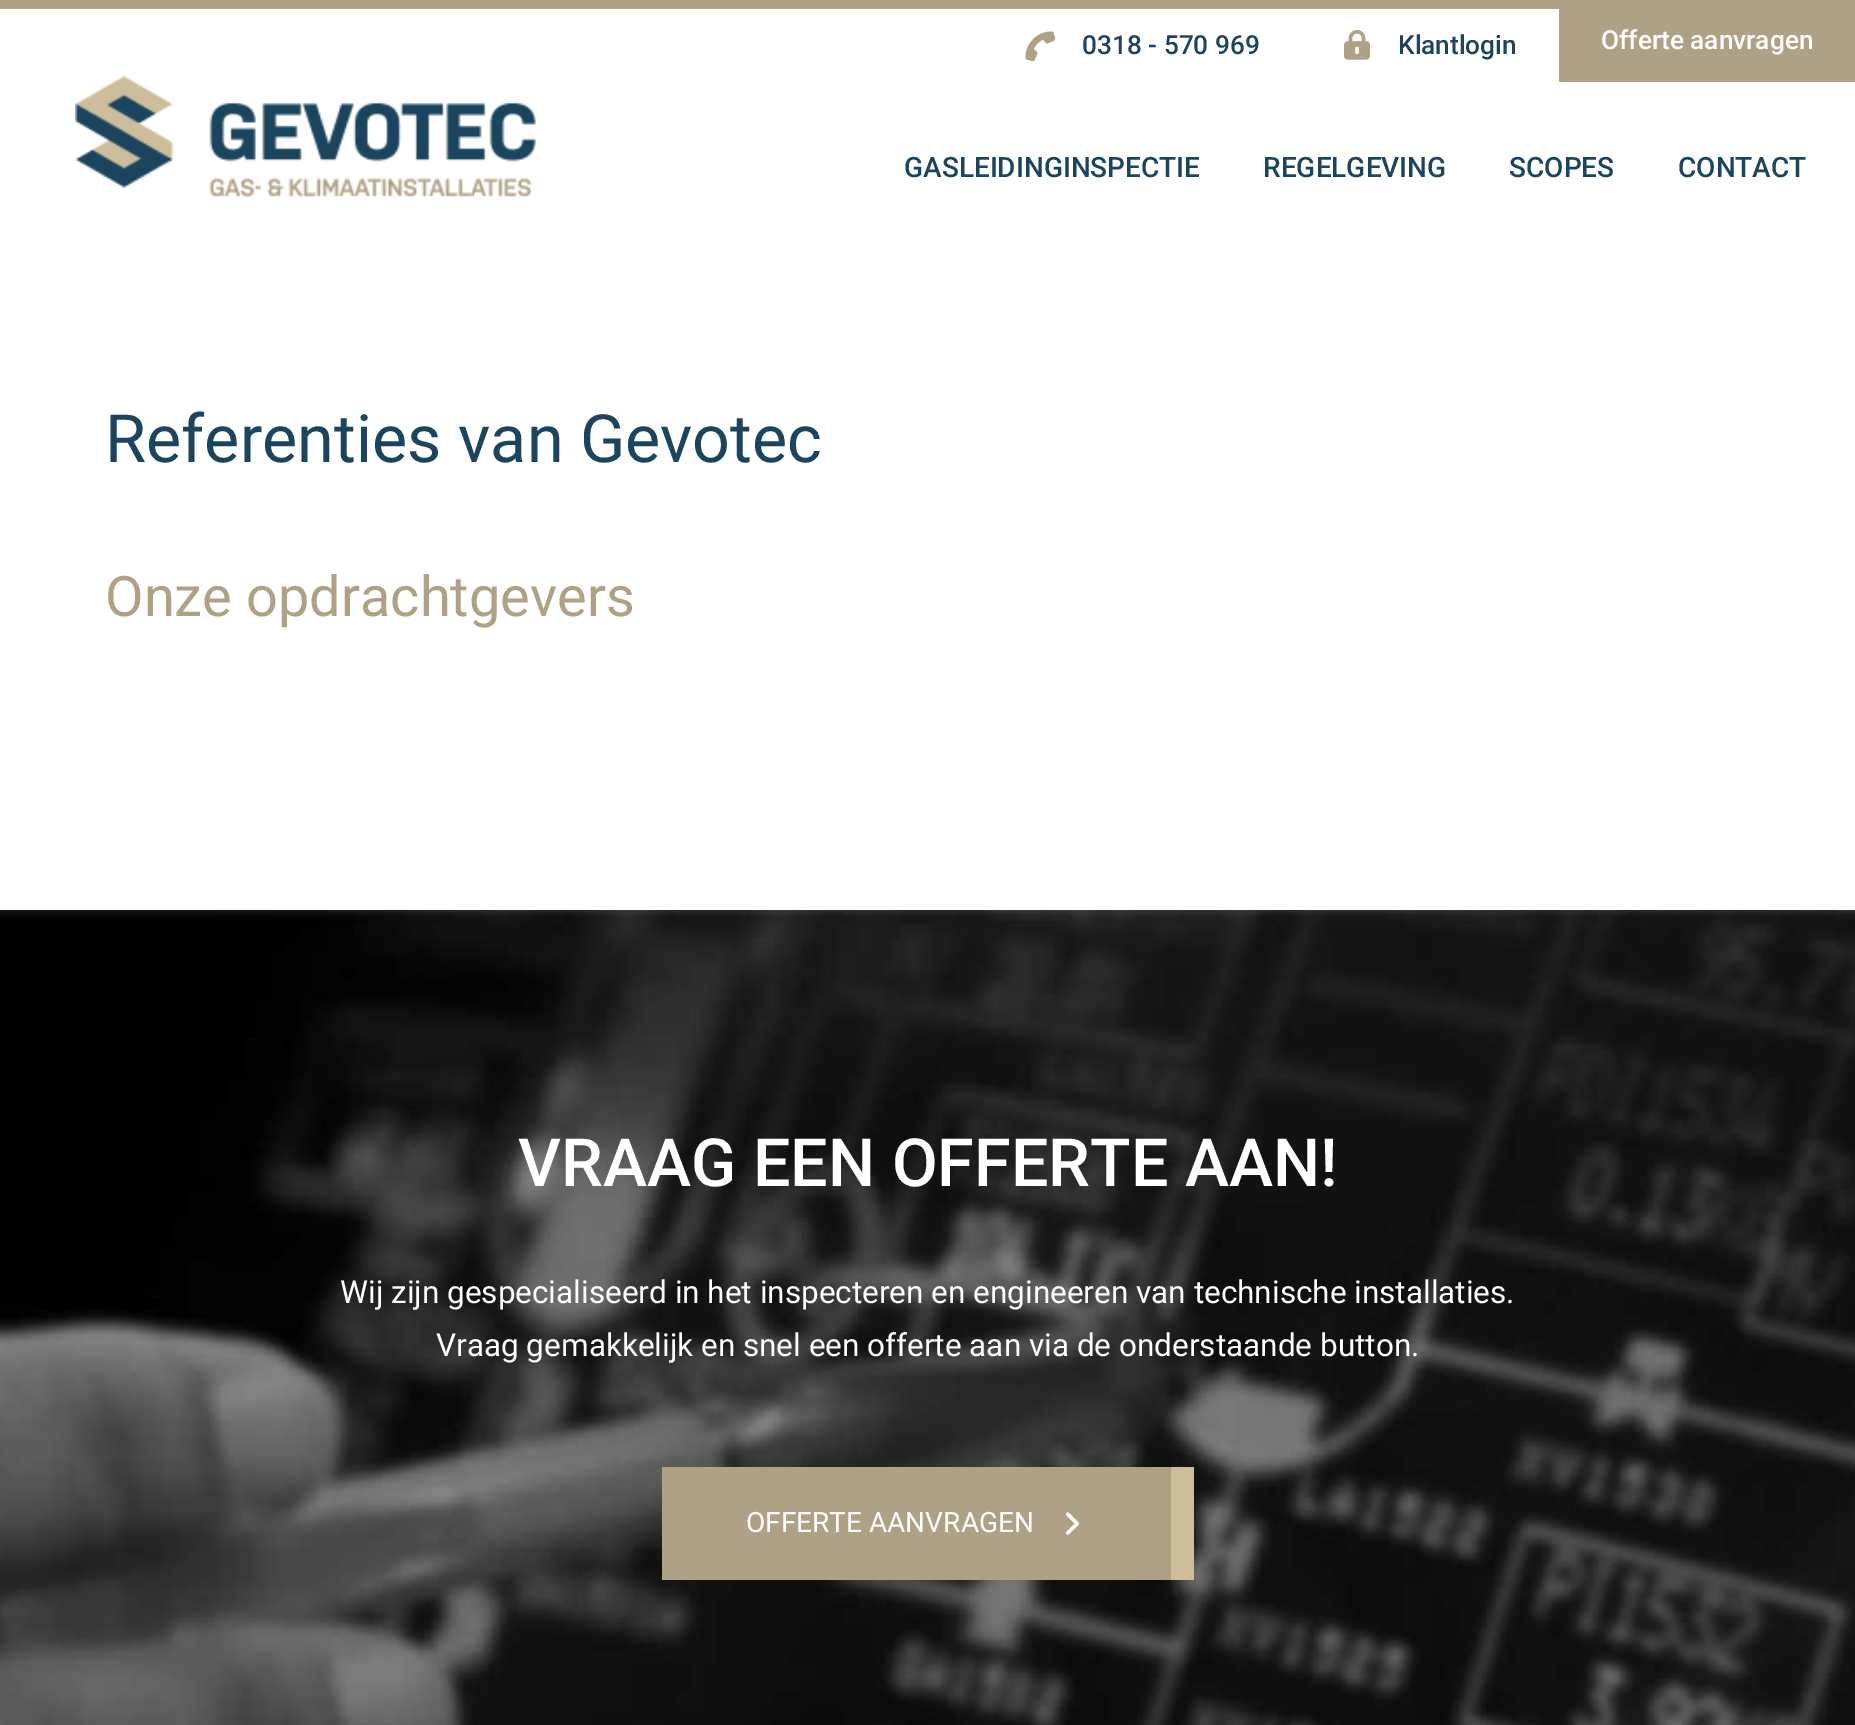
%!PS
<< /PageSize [1855 1725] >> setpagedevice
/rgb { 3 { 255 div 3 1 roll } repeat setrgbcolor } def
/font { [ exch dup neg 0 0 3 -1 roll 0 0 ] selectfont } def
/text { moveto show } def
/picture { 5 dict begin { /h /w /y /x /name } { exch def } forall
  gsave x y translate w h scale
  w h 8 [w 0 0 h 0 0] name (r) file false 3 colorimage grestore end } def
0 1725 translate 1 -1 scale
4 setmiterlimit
255 255 255 rgb
0 0 1855 1725 rectfill
175 161 133 rgb
0 0 1855 9 rectfill
(img_01.rgb) 1025 31 31 31 picture
(img_02.rgb) 1344 30 26 30 picture
1559 9 296 73 rectfill
(img_03.rgb) 75 75 461 123 picture
(img_04.rgb) 0 910 1855 815 picture
662 1467 509 113 rectfill
205 189 155 rgb
1171 1467 23 113 rectfill
(img_05.rgb) 1066 1512 13 23 picture
/Roboto-Medium 26.25 font
27 69 94 rgb
(0318 - 570 969) 1082 54 text
(Klantlogin) 1398 54 text
255 255 255 rgb
(Offerte aanvragen) 1601 49 text
/Roboto-Medium 28 font
27 69 94 rgb
(GASLEIDINGINSPECTIE) 904 177 text
(REGELGEVING) 1263 177 text
(SCOPES) 1509 177 text
(CONTACT) 1678 177 text
/Roboto-Regular 66.5 font
(Referenties van Gevotec) 105 462 text
/Roboto-Regular 56 font
175 161 133 rgb
(Onze opdrachtgevers) 105 616 text
/Roboto-Medium 66.5 font
255 255 255 rgb
(VRAAG EEN OFFERTE AAN!) 518 1186 text
/Roboto-Regular 31.5 font
(Wij zijn gespecialiseerd in het inspecteren en engineeren van technische installaties.) 340 1303 text
(Vraag gemakkelijk en snel een offerte aan via de onderstaande button.) 436 1356 text
/Roboto-Regular 28 font
(OFFERTE AANVRAGEN) 746 1532 text
showpage
